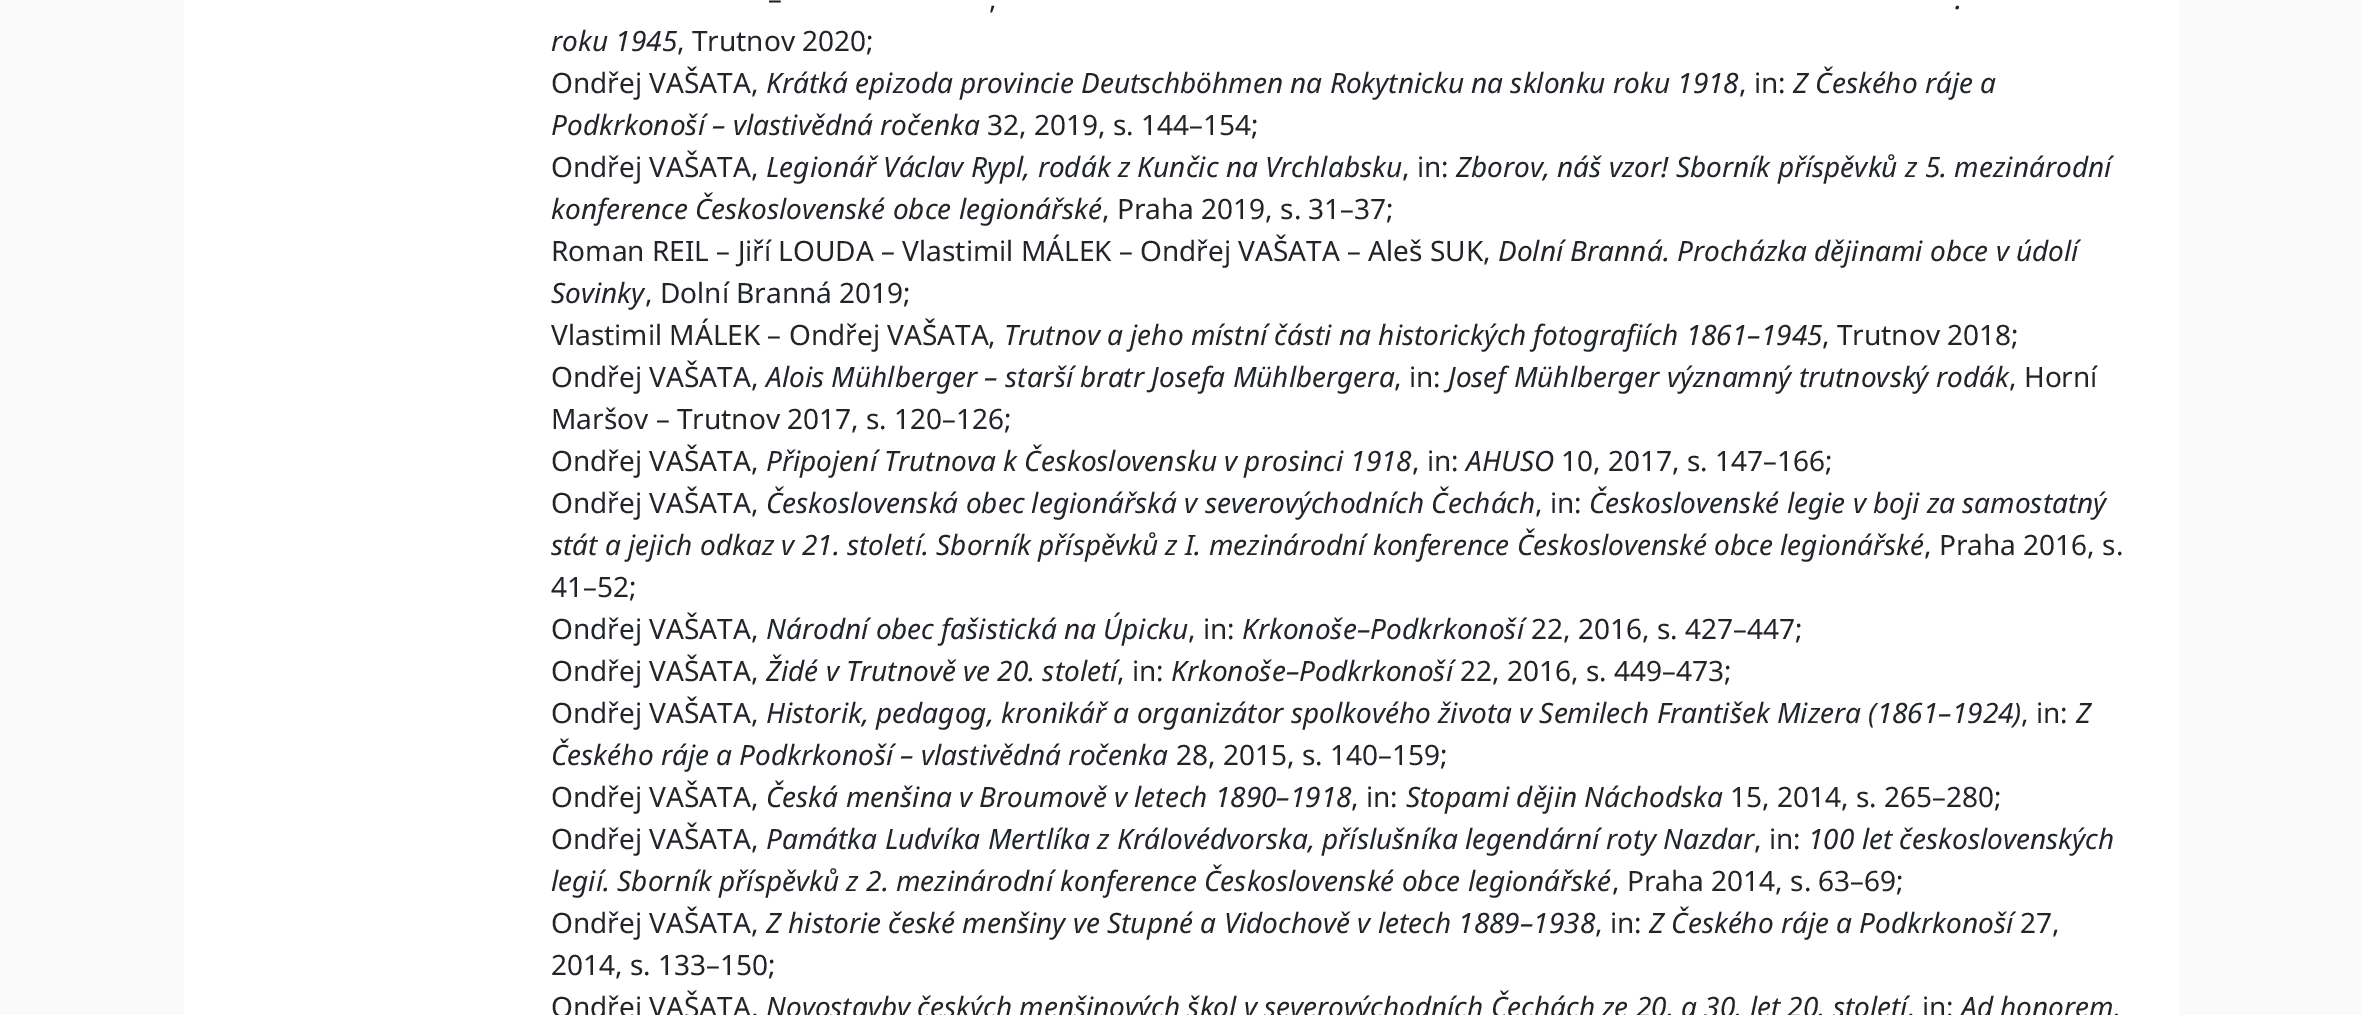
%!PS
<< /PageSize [2362 1015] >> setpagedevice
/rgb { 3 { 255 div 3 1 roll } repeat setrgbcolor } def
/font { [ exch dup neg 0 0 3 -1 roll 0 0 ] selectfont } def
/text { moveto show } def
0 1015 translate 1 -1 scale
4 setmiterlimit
250 250 250 rgb
0 0 2362 1015 rectfill
255 255 255 rgb
184 0 1995 1015 rectfill
/NotoSans-Regular 28 font
33 37 41 rgb
(–) 768 9 text
(,) 989 9 text
/NotoSans-Italic 28 font
(.) 1955 9 text
(roku 1945) 551 51 text
/NotoSans-Regular 28 font
(, Trutnov 2020;) 677 51 text
(Ondřej VAŠATA,) 551 93 text
/NotoSans-Italic 28 font
(Krátká epizoda provincie Deutschböhmen na Rokytnicku na sklonku roku 1918) 766 93 text
/NotoSans-Regular 28 font
(, in:) 1739 93 text
/NotoSans-Italic 28 font
(Z Českého ráje a) 1793 93 text
(Podkrkonoší – vlastivědná ročenka) 551 135 text
/NotoSans-Regular 28 font
(32, 2019, s. 144–154;) 987 135 text
(Ondřej VAŠATA,) 551 177 text
/NotoSans-Italic 28 font
(Legionář Václav Rypl, rodák z Kunčic na Vrchlabsku) 766 177 text
/NotoSans-Regular 28 font
(, in:) 1402 177 text
/NotoSans-Italic 28 font
(Zborov, náš vzor! Sborník příspěvků z 5. mezinárodní) 1456 177 text
(konference Československé obce legionářské) 551 219 text
/NotoSans-Regular 28 font
(, Praha 2019, s. 31–37;) 1102 219 text
(Roman REIL – Jiří LOUDA – Vlastimil MÁLEK – Ondřej VAŠATA – Aleš SUK,) 551 261 text
/NotoSans-Italic 28 font
(Dolní Branná. Procházka dějinami obce v údolí) 1498 261 text
(Sovinky) 551 303 text
/NotoSans-Regular 28 font
(, Dolní Branná 2019;) 645 303 text
(Vlastimil MÁLEK – Ondřej VAŠATA,) 551 345 text
/NotoSans-Italic 28 font
(Trutnov a jeho místní části na historických fotografiích 1861–1945) 1004 345 text
/NotoSans-Regular 28 font
(, Trutnov 2018;) 1822 345 text
(Ondřej VAŠATA,) 551 387 text
/NotoSans-Italic 28 font
(Alois Mühlberger – starší bratr Josefa Mühlbergera) 766 387 text
/NotoSans-Regular 28 font
(, in:) 1394 387 text
/NotoSans-Italic 28 font
(Josef Mühlberger významný trutnovský rodák) 1448 387 text
/NotoSans-Regular 28 font
(, Horní) 2009 387 text
(Maršov – Trutnov 2017, s. 120–126;) 551 429 text
(Ondřej VAŠATA,) 551 471 text
/NotoSans-Italic 28 font
(Připojení Trutnova k Československu v prosinci 1918) 766 471 text
/NotoSans-Regular 28 font
(, in:) 1412 471 text
/NotoSans-Italic 28 font
(AHUSO) 1466 471 text
/NotoSans-Regular 28 font
(10, 2017, s. 147–166;) 1561 471 text
(Ondřej VAŠATA,) 551 513 text
/NotoSans-Italic 28 font
(Československá obec legionářská v severovýchodních Čechách) 766 513 text
/NotoSans-Regular 28 font
(, in:) 1535 513 text
/NotoSans-Italic 28 font
(Československé legie v boji za samostatný) 1589 513 text
(stát a jejich odkaz v 21. století. Sborník příspěvků z I. mezinárodní konference Československé obce legionářské) 551 555 text
/NotoSans-Regular 28 font
(, Praha 2016, s.) 1924 555 text
(41–52;) 551 597 text
(Ondřej VAŠATA,) 551 639 text
/NotoSans-Italic 28 font
(Národní obec fašistická na Úpicku) 766 639 text
/NotoSans-Regular 28 font
(, in:) 1188 639 text
/NotoSans-Italic 28 font
(Krkonoše–Podkrkonoší) 1242 639 text
/NotoSans-Regular 28 font
(22, 2016, s. 427–447;) 1531 639 text
(Ondřej VAŠATA,) 551 681 text
/NotoSans-Italic 28 font
(Židé v Trutnově ve 20. století) 766 681 text
/NotoSans-Regular 28 font
(, in:) 1117 681 text
/NotoSans-Italic 28 font
(Krkonoše–Podkrkonoší) 1171 681 text
/NotoSans-Regular 28 font
(22, 2016, s. 449–473;) 1460 681 text
(Ondřej VAŠATA,) 551 723 text
/NotoSans-Italic 28 font
(Historik, pedagog, kronikář a organizátor spolkového života v Semilech František Mizera \(1861–1924\)) 766 723 text
/NotoSans-Regular 28 font
(, in:) 2021 723 text
/NotoSans-Italic 28 font
(Z) 2076 723 text
(Českého ráje a Podkrkonoší – vlastivědná ročenka) 551 765 text
/NotoSans-Regular 28 font
(28, 2015, s. 140–159;) 1176 765 text
(Ondřej VAŠATA,) 551 807 text
/NotoSans-Italic 28 font
(Česká menšina v Broumově v letech 1890–1918) 766 807 text
/NotoSans-Regular 28 font
(, in:) 1351 807 text
/NotoSans-Italic 28 font
(Stopami dějin Náchodska) 1406 807 text
/NotoSans-Regular 28 font
(15, 2014, s. 265–280;) 1730 807 text
(Ondřej VAŠATA,) 551 849 text
/NotoSans-Italic 28 font
(Památka Ludvíka Mertlíka z Královédvorska, příslušníka legendární roty Nazdar) 766 849 text
/NotoSans-Regular 28 font
(, in:) 1754 849 text
/NotoSans-Italic 28 font
(100 let československých) 1808 849 text
(legií. Sborník příspěvků z 2. mezinárodní konference Československé obce legionářské) 551 891 text
/NotoSans-Regular 28 font
(, Praha 2014, s. 63–69;) 1612 891 text
(Ondřej VAŠATA,) 551 933 text
/NotoSans-Italic 28 font
(Z historie české menšiny ve Stupné a Vidochově v letech 1889–1938) 766 933 text
/NotoSans-Regular 28 font
(, in:) 1595 933 text
/NotoSans-Italic 28 font
(Z Českého ráje a Podkrkonoší) 1649 933 text
/NotoSans-Regular 28 font
(27,) 2020 933 text
(2014, s. 133–150;) 551 975 text
(Ondřej VAŠATA,) 551 1017 text
/NotoSans-Italic 28 font
(Novostavby českých menšinových škol v severovýchodních Čechách ze 20. a 30. let 20. století) 766 1017 text
/NotoSans-Regular 28 font
(, in:) 1907 1017 text
/NotoSans-Italic 28 font
(Ad honorem.) 1961 1017 text
showpage
